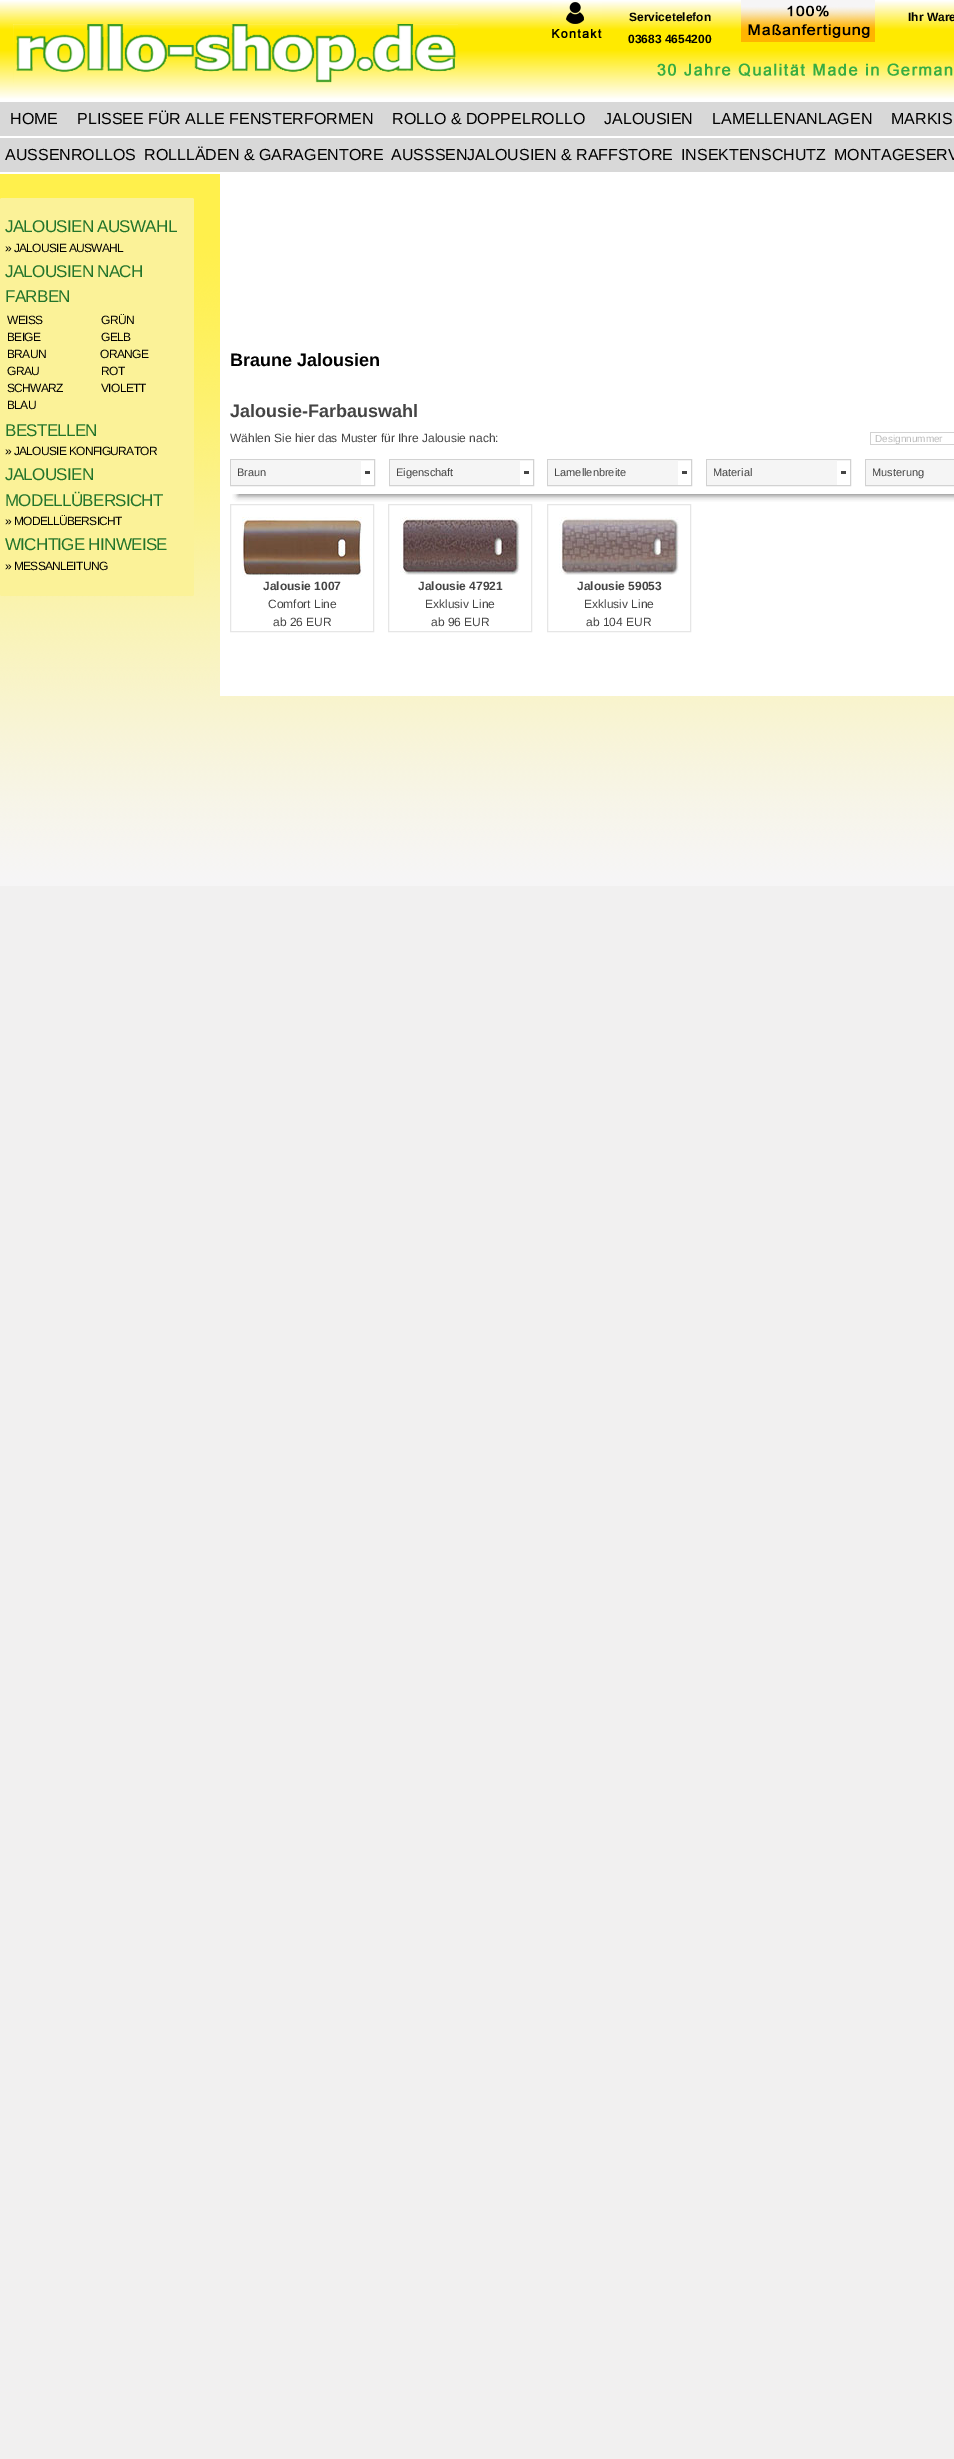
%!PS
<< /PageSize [954 2459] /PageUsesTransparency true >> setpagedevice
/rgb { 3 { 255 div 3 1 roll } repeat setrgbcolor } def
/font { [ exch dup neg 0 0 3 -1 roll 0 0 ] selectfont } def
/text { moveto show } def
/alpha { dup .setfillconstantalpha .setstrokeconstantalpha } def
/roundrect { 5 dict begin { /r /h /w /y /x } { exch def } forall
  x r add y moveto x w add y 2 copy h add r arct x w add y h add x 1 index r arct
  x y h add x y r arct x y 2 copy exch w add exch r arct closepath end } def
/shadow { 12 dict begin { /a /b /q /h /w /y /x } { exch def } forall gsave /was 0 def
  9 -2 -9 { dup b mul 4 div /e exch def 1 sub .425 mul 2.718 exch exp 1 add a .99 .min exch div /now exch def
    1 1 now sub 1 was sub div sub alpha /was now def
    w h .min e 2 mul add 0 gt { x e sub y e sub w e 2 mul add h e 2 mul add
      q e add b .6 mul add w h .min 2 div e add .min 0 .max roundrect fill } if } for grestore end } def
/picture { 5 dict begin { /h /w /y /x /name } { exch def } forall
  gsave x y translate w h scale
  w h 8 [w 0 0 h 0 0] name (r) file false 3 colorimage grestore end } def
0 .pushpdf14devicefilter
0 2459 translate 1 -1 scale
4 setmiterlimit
241 240 240 rgb
0 0 954 2459 rectfill
(img_01.rgb) 0 174 954 712 picture
255 255 255 rgb
0 100 954 74 rectfill
gsave 0 0 moveto 954 0 rlineto 0 50 rlineto -954 0 rlineto closepath clip newpath
<< /ShadingType 2 /ColorSpace /DeviceRGB /Coords [510 0 510 50] /Extend [true true] /Function << /FunctionType 3 /Domain [0 1] /Functions [<< /FunctionType 2 /Domain [0 1] /C0 [1 1 1] /C1 [1 1 1] /N 1 >> << /FunctionType 2 /Domain [0 1] /C0 [1 1 1] /C1 [1 0.918 0] /N 1 >> << /FunctionType 2 /Domain [0 1] /C0 [1 0.918 0] /C1 [1 0.918 0] /N 1 >>] /Bounds [0.01 0.6] /Encode [0 1 0 1 0 1] >> >> shfill grestore
(img_02.rgb) 552 2 50 36 picture
(img_03.rgb) 741 0 134 42 picture
gsave 0 50 moveto 954 0 rlineto 0 50 rlineto -954 0 rlineto closepath clip newpath
<< /ShadingType 2 /ColorSpace /DeviceRGB /Coords [510 100 510 50] /Extend [true true] /Function << /FunctionType 3 /Domain [0 1] /Functions [<< /FunctionType 2 /Domain [0 1] /C0 [1 1 1] /C1 [1 1 1] /N 1 >> << /FunctionType 2 /Domain [0 1] /C0 [1 1 1] /C1 [1 0.918 0] /N 1 >>] /Bounds [0.01] /Encode [0 1 0 1] >> >> shfill grestore
(img_04.rgb) 13 24 445 59 picture
(img_05.rgb) 657 63 296 14 picture
216 216 216 rgb
0 102 954 34 rectfill
0 138 954 34 rectfill
251 242 152 rgb
0 198 194 398 2 roundrect fill
255 255 255 rgb
220 174 734 522 rectfill
230 230 230 rgb
230.5 504.5 143 127 rectstroke
388.5 504.5 143 127 rectstroke
547.5 504.5 143 127 rectstroke
gsave
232 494 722 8 rectclip
136 136 136 rgb
238 477 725 19 0 3 1 shadow
grestore
210 210 210 rgb
870 432 84 1 rectfill
870 444 84 1 rectfill
870 432 1 13 rectfill
230.5 459.5 144 26 rectstroke
245 245 245 rgb
231 460 130 25 rectfill
68 68 68 rgb
365 471 5 3 rectfill
210 210 210 rgb
389.5 459.5 144 26 rectstroke
245 245 245 rgb
390 460 130 25 rectfill
68 68 68 rgb
524 471 5 3 rectfill
210 210 210 rgb
547.5 459.5 144 26 rectstroke
245 245 245 rgb
548 460 130 25 rectfill
68 68 68 rgb
682 471 5 3 rectfill
210 210 210 rgb
706.5 459.5 144 26 rectstroke
245 245 245 rgb
707 460 130 25 rectfill
68 68 68 rgb
841 471 5 3 rectfill
210 210 210 rgb
865.5 459.5 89 26 rectstroke
245 245 245 rgb
866 460 88 25 rectfill
(img_06.rgb) 242 517 120 60 picture
(img_07.rgb) 400 517 120 58 picture
(img_08.rgb) 559 517 120 58 picture
/LiberationSans-Bold 12 font
0 0 0 rgb
(Servicetelefon) 629 21 text
(03683 4654200) 628 43 text
(Ihr Ware) 908 21 text
/LiberationSans-Regular 16 font
(HOME) 10 124 text
(PLISSEE FÜR ALLE FENSTERFORMEN) 77 124 text
(ROLLO & DOPPELROLLO) 392 124 text
(JALOUSIEN) 604 124 text
(LAMELLENANLAGEN) 712 124 text
(MARKIS) 891 124 text
(AUSSENROLLOS) 5 160 text
(ROLLLÄDEN & GARAGENTORE) 144 160 text
(AUSSSENJALOUSIEN & RAFFSTORE) 391 160 text
(INSEKTENSCHUTZ) 681 160 text
(MONTAGESERV) 834 160 text
/LiberationSans-Regular 17 font
35 116 43 rgb
5 232 moveto -0.7 0 (JALOUSIEN AUSWAHL) ashow
/LiberationSans-Regular 12 font
0 0 0 rgb
5 252 moveto -0.7 0 (» JALOUSIE AUSWAHL) ashow
/LiberationSans-Regular 17 font
35 116 43 rgb
5 277 moveto -0.7 0 (JALOUSIEN NACH) ashow
5 302 moveto -0.7 0 (FARBEN) ashow
/LiberationSans-Regular 12 font
0 0 0 rgb
7 324 moveto -0.7 0 (WEISS) ashow
101 324 moveto -0.7 0 (GRÜN) ashow
7 341 moveto -0.7 0 (BEIGE) ashow
101 341 moveto -0.7 0 (GELB) ashow
7 358 moveto -0.7 0 (BRAUN) ashow
100 358 moveto -0.7 0 (ORANGE) ashow
7 375 moveto -0.7 0 (GRAU) ashow
101 375 moveto -0.7 0 (ROT) ashow
7 392 moveto -0.7 0 (SCHWARZ) ashow
101 392 moveto -0.7 0 (VIOLETT) ashow
7 409 moveto -0.7 0 (BLAU) ashow
/LiberationSans-Regular 17 font
35 116 43 rgb
5 436 moveto -0.7 0 (BESTELLEN) ashow
/LiberationSans-Regular 12 font
0 0 0 rgb
5 455 moveto -0.7 0 (» JALOUSIE KONFIGURATOR) ashow
/LiberationSans-Regular 17 font
35 116 43 rgb
5 480 moveto -0.7 0 (JALOUSIEN) ashow
5 506 moveto -0.7 0 (MODELLÜBERSICHT) ashow
/LiberationSans-Regular 12 font
0 0 0 rgb
5 525 moveto -0.7 0 (» MODELLÜBERSICHT) ashow
/LiberationSans-Regular 17 font
35 116 43 rgb
5 550 moveto -0.7 0 (WICHTIGE HINWEISE) ashow
/LiberationSans-Regular 12 font
0 0 0 rgb
5 570 moveto -0.7 0 (» MESSANLEITUNG) ashow
/LiberationSans-Bold 18 font
(Braune Jalousien) 230 366 text
68 68 68 rgb
(Jalousie-Farbauswahl) 230 417 text
/LiberationSans-Regular 12 font
(Wählen Sie hier das Muster für Ihre Jalousie nach:) 230 442 text
/LiberationSans-Regular 10 font
187 187 187 rgb
(Designnummer) 875 442 text
/LiberationSans-Regular 11 font
68 68 68 rgb
(Braun) 237 476 text
(Eigenschaft) 396 476 text
(Lamellenbreite) 554 476 text
(Material) 713 476 text
(Musterung) 872 476 text
/LiberationSans-Bold 12 font
(Jalousie 1007) 263 590 text
/LiberationSans-Regular 12 font
(Comfort Line) 268 608 text
(ab 26 EUR) 273 626 text
/LiberationSans-Bold 12 font
(Jalousie 47921) 418 590 text
/LiberationSans-Regular 12 font
(Exklusiv Line) 425 608 text
(ab 96 EUR) 431 626 text
/LiberationSans-Bold 12 font
(Jalousie 59053) 577 590 text
/LiberationSans-Regular 12 font
(Exklusiv Line) 584 608 text
(ab 104 EUR) 586 626 text
.poppdf14devicefilter showpage
